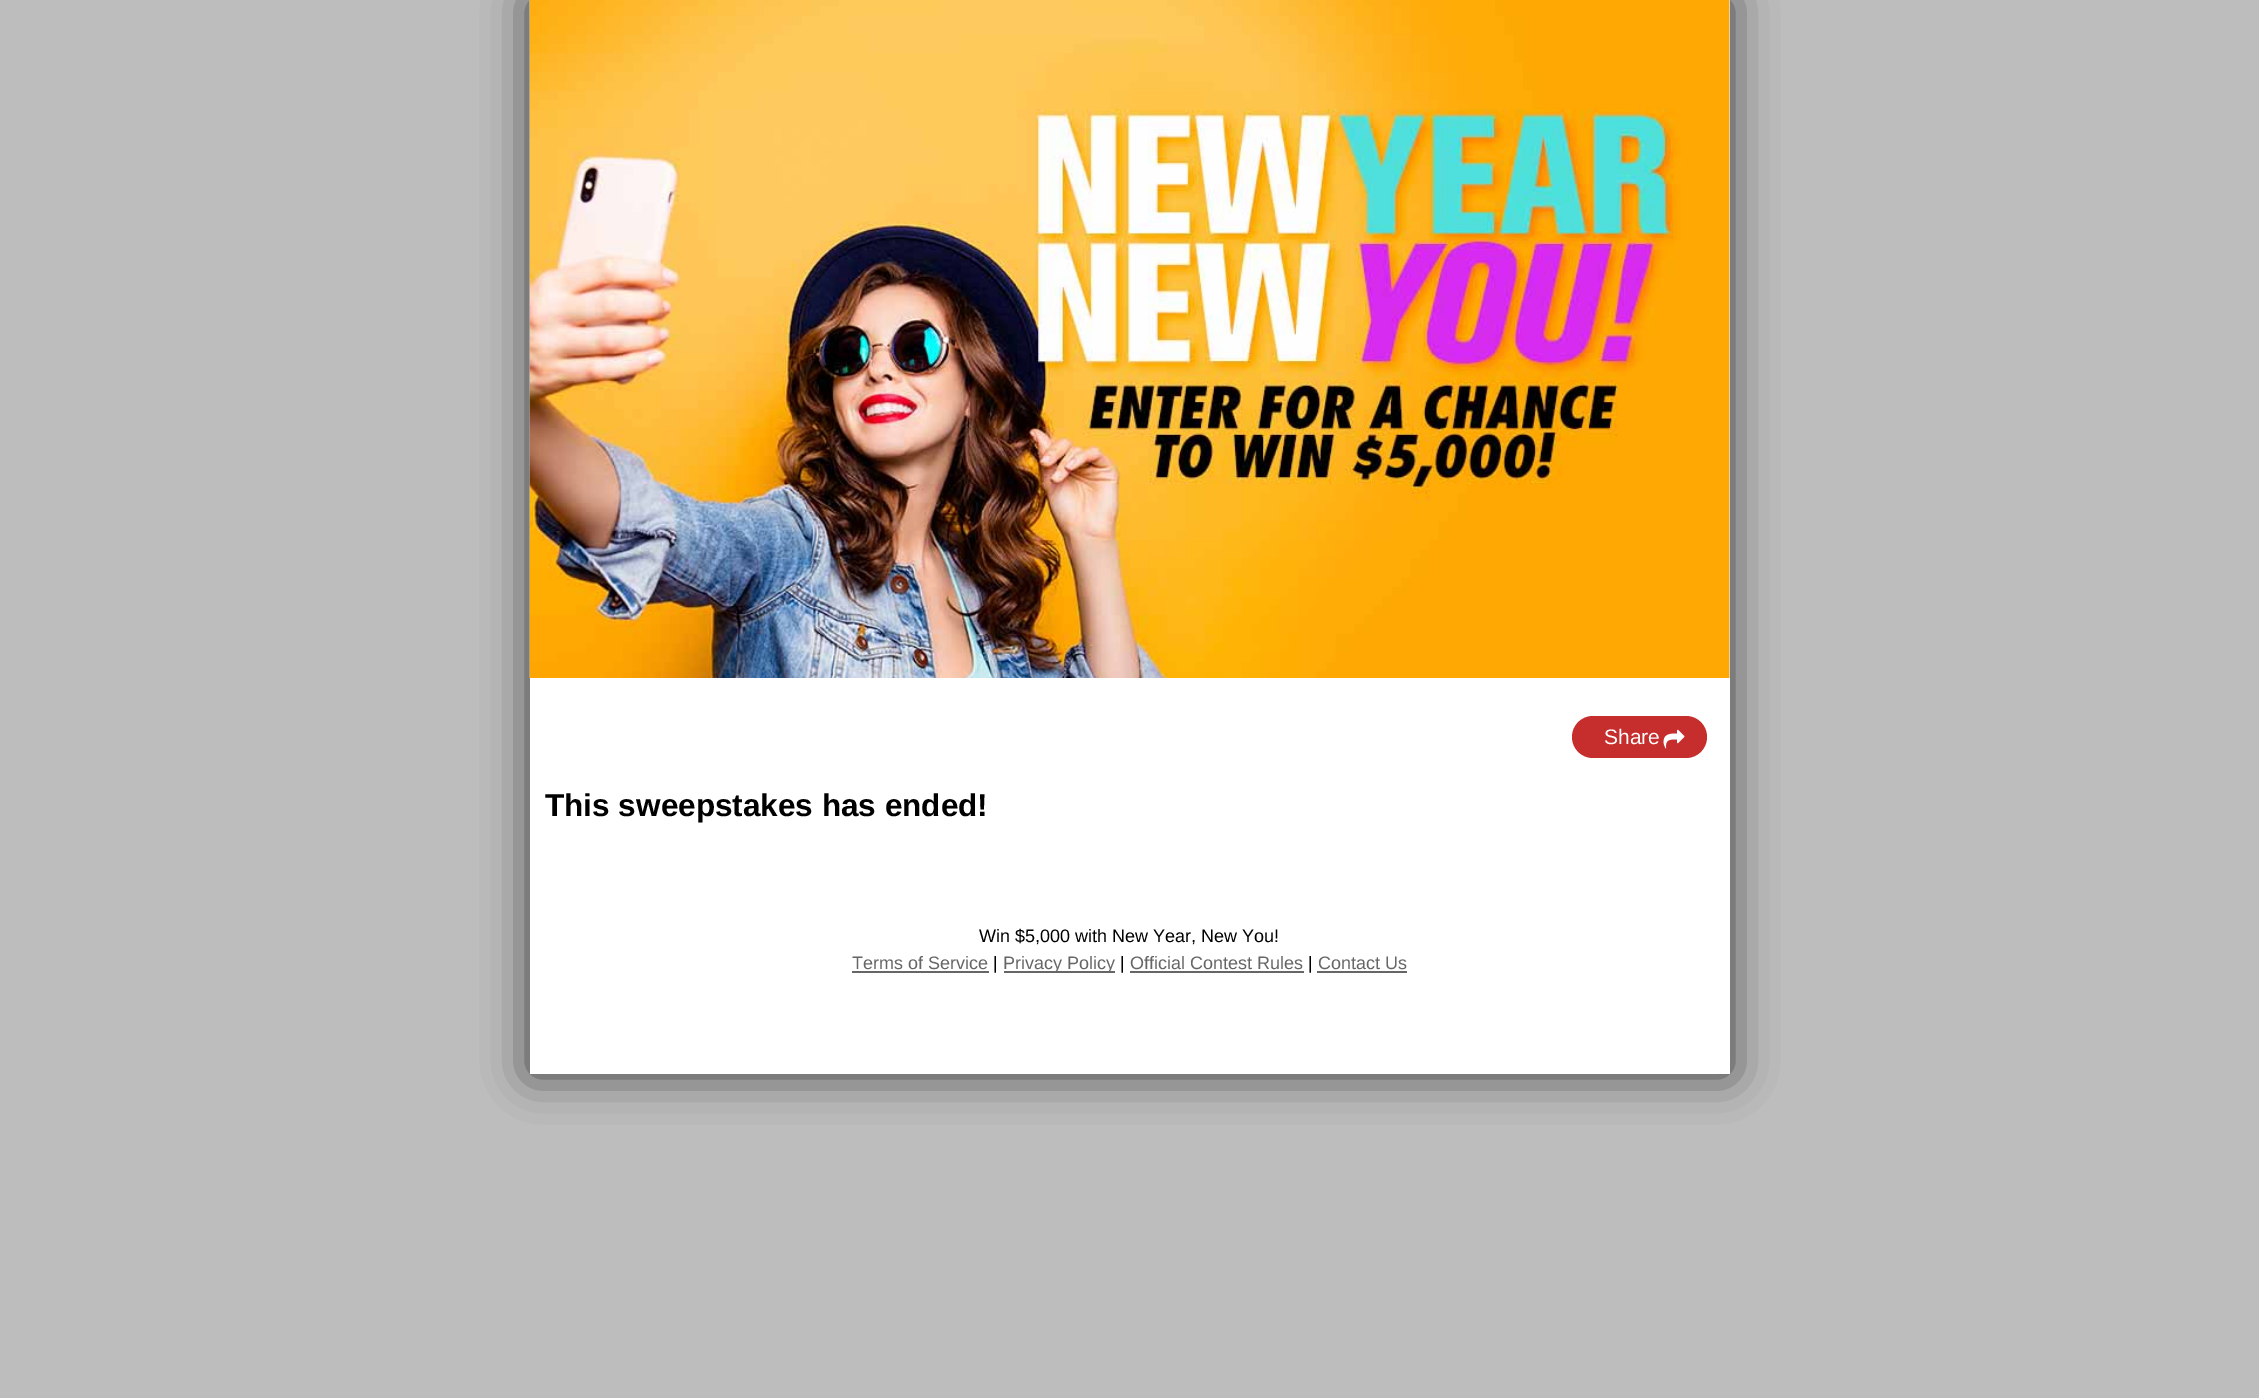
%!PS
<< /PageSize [2259 1398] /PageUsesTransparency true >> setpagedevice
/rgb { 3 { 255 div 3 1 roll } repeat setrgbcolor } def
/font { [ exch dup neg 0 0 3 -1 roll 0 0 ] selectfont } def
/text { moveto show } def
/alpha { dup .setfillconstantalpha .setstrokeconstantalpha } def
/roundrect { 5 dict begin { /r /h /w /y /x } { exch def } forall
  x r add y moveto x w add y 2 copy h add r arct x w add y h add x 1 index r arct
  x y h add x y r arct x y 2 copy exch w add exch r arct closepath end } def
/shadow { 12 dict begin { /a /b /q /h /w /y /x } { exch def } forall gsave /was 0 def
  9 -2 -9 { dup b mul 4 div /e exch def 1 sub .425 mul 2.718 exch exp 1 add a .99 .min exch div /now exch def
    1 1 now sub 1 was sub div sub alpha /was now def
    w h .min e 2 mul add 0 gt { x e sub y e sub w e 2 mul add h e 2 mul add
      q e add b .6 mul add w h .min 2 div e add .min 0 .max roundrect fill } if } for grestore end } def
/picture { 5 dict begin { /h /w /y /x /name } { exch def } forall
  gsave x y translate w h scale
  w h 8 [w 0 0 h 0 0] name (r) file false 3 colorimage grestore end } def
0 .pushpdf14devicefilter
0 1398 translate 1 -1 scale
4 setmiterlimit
189 189 189 rgb
0 0 2259 1398 rectfill
0 0 0 rgb
530 0 1200 1074 0 22.5 0.7 shadow
255 255 255 rgb
530 678 1200 396 rectfill
224 224 224 rgb
1729 0 1 678 rectfill
(img_01.rgb) 529 0 1201 678 picture
198 45 45 rgb
1572 716 135 42 21 roundrect fill
(img_02.rgb) 1663 729 22 20 picture
102 102 102 rgb
852 971 137 2 rectfill
1004 971 111 2 rectfill
1130 971 174 2 rectfill
1317 971 90 2 rectfill
/LiberationSans-Regular 21 font
255 255 255 rgb
(Share) 1604 744 text
/LiberationSans-Bold 31.5 font
0 0 0 rgb
(This sweepstakes has ended!) 545 816 text
/LiberationSans-Regular 18 font
(Win $5,000 with New Year, New You!) 979 942 text
102 102 102 rgb
(Terms of Service) 852 969 text
0 0 0 rgb
(|) 993 969 text
102 102 102 rgb
(Privacy Policy) 1003 969 text
0 0 0 rgb
(|) 1120 969 text
102 102 102 rgb
(Official Contest Rules) 1130 969 text
0 0 0 rgb
(|) 1308 969 text
102 102 102 rgb
(Contact Us) 1318 969 text
.poppdf14devicefilter showpage
